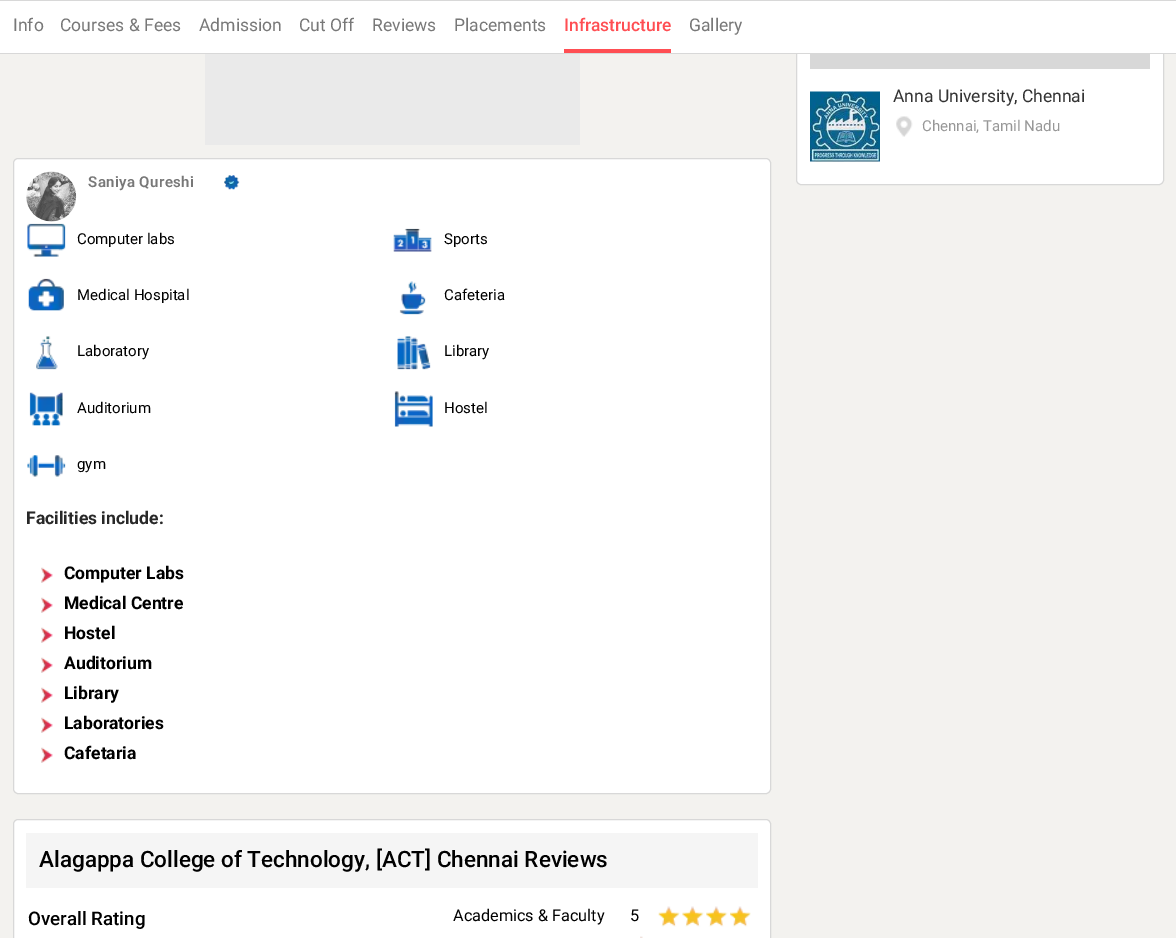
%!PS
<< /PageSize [1176 938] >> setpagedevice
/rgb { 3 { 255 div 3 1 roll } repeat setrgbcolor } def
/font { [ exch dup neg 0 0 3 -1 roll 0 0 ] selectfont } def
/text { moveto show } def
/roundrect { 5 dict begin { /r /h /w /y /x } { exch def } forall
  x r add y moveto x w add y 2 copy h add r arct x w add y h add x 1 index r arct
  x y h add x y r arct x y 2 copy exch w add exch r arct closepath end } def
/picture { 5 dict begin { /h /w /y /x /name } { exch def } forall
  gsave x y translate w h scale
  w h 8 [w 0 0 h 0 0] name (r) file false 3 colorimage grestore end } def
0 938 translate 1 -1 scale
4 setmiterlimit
243 242 239 rgb
0 0 1176 938 rectfill
255 255 255 rgb
796.5 0.5 367 184 4.5 roundrect gsave fill grestore
216 216 216 rgb
stroke
255 255 255 rgb
0 1 1176 52 rectfill
216 216 216 rgb
0 0 1176 1 rectfill
0 53 1176 1 rectfill
255 78 83 rgb
564 49 107 4 rectfill
216 216 216 rgb
810 54 340 15 rectfill
(img_01.rgb) 810 91 70 71 picture
(img_02.rgb) 896 116 17 21 picture
234 234 234 rgb
205 54 375 91 rectfill
255 255 255 rgb
13.5 158.5 757 635 4.5 roundrect gsave fill grestore
216 216 216 rgb
stroke
(img_03.rgb) 26 171 51 51 picture
(img_04.rgb) 224 175 16 15 picture
(img_05.rgb) 27 223 39 34 picture
(img_06.rgb) 393 228 39 24 picture
(img_07.rgb) 28 278 36 33 picture
(img_08.rgb) 399 281 27 34 picture
(img_09.rgb) 36 336 22 34 picture
(img_10.rgb) 397 336 34 34 picture
(img_11.rgb) 29 392 34 34 picture
(img_12.rgb) 394 391 39 36 picture
(img_13.rgb) 27 455 39 22 picture
(img_14.rgb) 41 567 12 16 picture
(img_14.rgb) 41 597 12 16 picture
(img_14.rgb) 41 627 12 16 picture
(img_14.rgb) 41 657 12 16 picture
(img_14.rgb) 41 687 12 16 picture
(img_15.rgb) 41 717 12 16 picture
(img_14.rgb) 41 747 12 16 picture
255 255 255 rgb
13.5 819.5 757 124 4.5 roundrect gsave fill grestore
216 216 216 rgb
stroke
245 245 245 rgb
26 833 732 55 rectfill
(img_16.rgb) 658 906 22 21 picture
(img_17.rgb) 682 906 22 21 picture
(img_18.rgb) 706 906 22 21 picture
(img_19.rgb) 730 906 21 21 picture
(img_20.rgb) 640 936 3 2 picture
/Roboto-Regular 17.5 font
120 120 120 rgb
(Info) 13 31 text
(Courses & Fees) 60 31 text
(Admission) 199 31 text
(Cut Off) 299 31 text
(Reviews) 372 31 text
(Placements) 454 31 text
/Roboto-Medium 17.5 font
255 78 83 rgb
(Infrastructure) 564 31 text
/Roboto-Regular 17.5 font
120 120 120 rgb
(Gallery) 689 31 text
51 51 51 rgb
(Anna University, Chennai) 893 102 text
/Roboto-Regular 15 font
152 152 152 rgb
(Chennai, Tamil Nadu) 922 131 text
/Roboto-SemiBold 15 font
120 120 120 rgb
88 187 moveto 0.4 0 (Saniya Qureshi) ashow
/Roboto-Regular 15 font
0 0 0 rgb
(Computer labs) 77 244 text
(Sports) 444 244 text
(Medical Hospital) 77 300 text
(Cafeteria) 444 300 text
(Laboratory) 77 356 text
(Library) 444 356 text
(Auditorium) 77 413 text
(Hostel) 444 413 text
(gym) 77 469 text
/Roboto-Bold 17.5 font
40 40 40 rgb
(Facilities include:) 26 524 text
0 0 0 rgb
(Computer Labs) 64 579 text
(Medical Centre) 64 609 text
(Hostel) 64 639 text
(Auditorium) 64 669 text
(Library) 64 699 text
(Laboratories) 64 729 text
(Cafetaria) 64 759 text
/Roboto-Medium 22.5 font
(Alagappa College of Technology, [ACT] Chennai Reviews) 39 867 text
/Roboto-Medium 18.75 font
(Overall Rating) 28 925 text
/Roboto-Regular 16.25 font
(Academics & Faculty) 453 921 text
(5) 630 921 text
showpage
